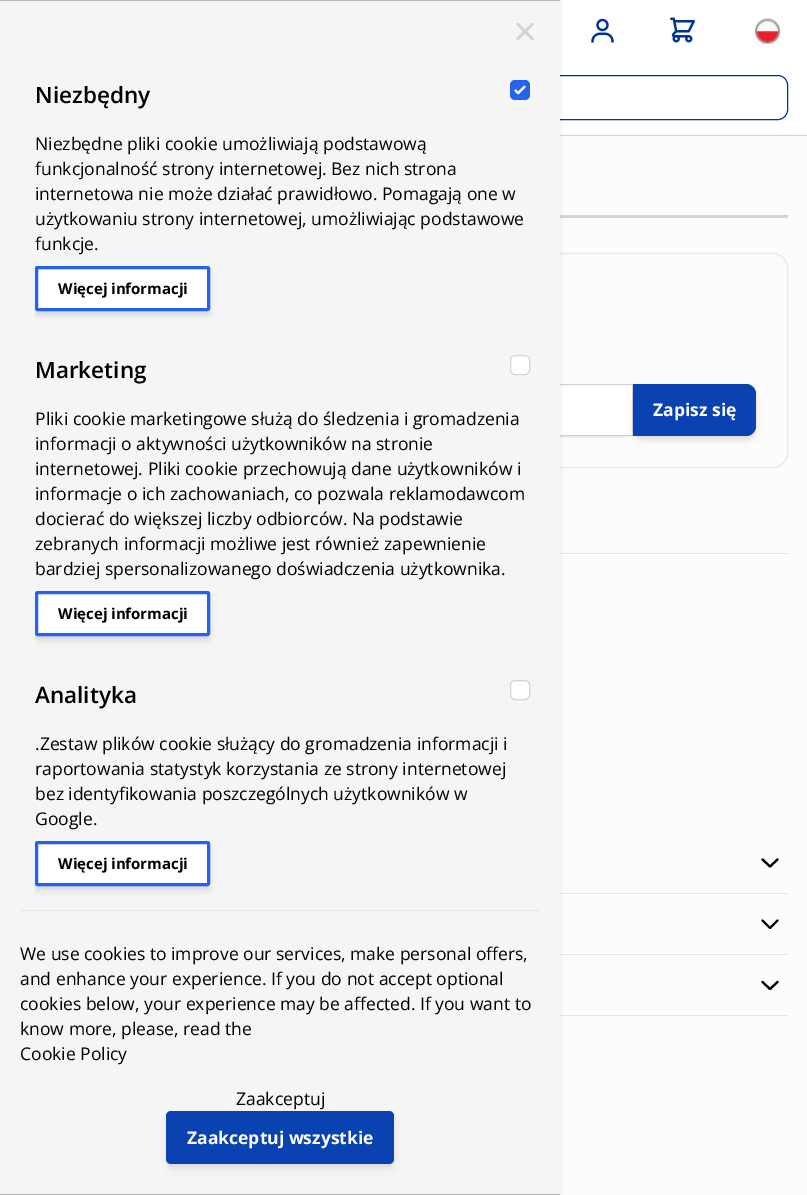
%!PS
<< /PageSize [807 1195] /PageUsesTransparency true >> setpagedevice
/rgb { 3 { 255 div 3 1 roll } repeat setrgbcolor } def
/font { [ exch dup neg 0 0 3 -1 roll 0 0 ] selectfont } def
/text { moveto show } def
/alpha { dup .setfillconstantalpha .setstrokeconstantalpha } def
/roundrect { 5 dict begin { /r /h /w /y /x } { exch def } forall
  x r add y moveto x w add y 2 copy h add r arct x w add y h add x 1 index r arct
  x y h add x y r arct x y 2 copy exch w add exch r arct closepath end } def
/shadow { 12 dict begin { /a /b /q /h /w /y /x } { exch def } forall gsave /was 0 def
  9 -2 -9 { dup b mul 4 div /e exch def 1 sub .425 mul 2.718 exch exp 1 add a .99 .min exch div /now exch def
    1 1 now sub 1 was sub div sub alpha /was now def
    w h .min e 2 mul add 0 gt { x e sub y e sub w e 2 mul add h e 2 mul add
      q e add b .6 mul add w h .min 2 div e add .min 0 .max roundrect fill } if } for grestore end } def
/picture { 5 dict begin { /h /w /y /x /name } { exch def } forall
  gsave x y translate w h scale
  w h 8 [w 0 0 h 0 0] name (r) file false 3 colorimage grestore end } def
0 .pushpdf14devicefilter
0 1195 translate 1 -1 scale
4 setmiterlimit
252 252 252 rgb
0 0 807 1195 rectfill
255 255 255 rgb
560 0 247 135 rectfill
209 213 219 rgb
560 135 247 1 rectfill
(img_01.rgb) 591 18 23 25 picture
(img_02.rgb) 670 17 25 26 picture
(img_03.rgb) 755 18 25 26 picture
0 51 153 rgb
95.5 75.5 692 44 9.5 roundrect stroke
209 213 219 rgb
560 215 228 3 rectfill
231 231 231 rgb
20.5 253.5 767 214 14.5 roundrect stroke
0 0 0 rgb
51 385 582 53 10 1 0.05 shadow
255 255 255 rgb
560 385 72 50 rectfill
209 213 219 rgb
51.5 384.5 581 51 rectstroke
229 231 235 rgb
560 553 228 1 rectfill
560 893 228 1 rectfill
560 954 228 1 rectfill
560 1015 228 1 rectfill
0 0 0 rgb
0 1 560 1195 0 2 0.1 shadow
245 245 245 rgb
0 1 560 1193 rectfill
182 182 182 rgb
0 0 560 1 rectfill
0 1194 560 1 rectfill
209 213 219 rgb
2.5 setlinewidth
1 setlinecap
1 setlinejoin
517.5 39 moveto 15 -15 rlineto 517.5 24 moveto 15 15 rlineto stroke
37 99 235 rgb
510 80 20 20 5 roundrect fill
(img_04.rgb) 514 85 12 10 picture
0 0 0 rgb
36 270 173 43 1 2.5 0.06 shadow
gsave
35 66 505 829 rectclip
36 273 173 42 1 4 0.1 shadow
grestore
255 255 255 rgb
36.5 267.5 172 42 1 roundrect gsave fill grestore
37 99 235 rgb
3 setlinewidth
0 setlinecap
0 setlinejoin
stroke
255 255 255 rgb
510.5 355.5 19 19 4.5 roundrect gsave fill grestore
209 213 219 rgb
1 setlinewidth
stroke
0 0 0 rgb
36 595 173 43 1 2.5 0.06 shadow
gsave
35 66 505 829 rectclip
36 598 173 42 1 4 0.1 shadow
grestore
255 255 255 rgb
36.5 592.5 172 42 1 roundrect gsave fill grestore
37 99 235 rgb
3 setlinewidth
stroke
255 255 255 rgb
510.5 680.5 19 19 4.5 roundrect gsave fill grestore
209 213 219 rgb
1 setlinewidth
stroke
0 0 0 rgb
36 845 173 43 1 2.5 0.06 shadow
gsave
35 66 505 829 rectclip
36 848 173 42 1 4 0.1 shadow
grestore
255 255 255 rgb
36.5 842.5 172 42 1 roundrect gsave fill grestore
37 99 235 rgb
3 setlinewidth
stroke
229 231 235 rgb
20 910 520 1 rectfill
0 0 0 rgb
168 1115 225 50 4 2.5 0.06 shadow
168 1118 225 50 4 4 0.1 shadow
10 66 177 rgb
166 1111 228 53 5 roundrect fill
0 0 0 rgb
634 388 121 50 9 2.5 0.06 shadow
634 390 121 50 9 4 0.1 shadow
10 66 177 rgb
633 384 moveto 113 0 rlineto 5.5 0 10 4.5 10 10 rcurveto 0 32 rlineto 0 5.5 -4.5 10 -10 10 rcurveto -113 0 rlineto closepath fill
0 0 0 rgb
2.1 setlinewidth
1 setlinecap
1 setlinejoin
777.5 859.5 moveto -7.5 7 rlineto -7.5 -7 rlineto stroke
777.5 920.5 moveto -7.5 7.5 rlineto -7.5 -7.5 rlineto stroke
777.5 982 moveto -7.5 7 rlineto -7.5 -7 rlineto stroke
/OpenSans-SemiBold 22.5 font
(Niezbędny) 35 103 text
/OpenSans-Regular 17.5 font
(Niezbędne pliki cookie umożliwiają podstawową) 35 150 text
(funkcjonalność strony internetowej. Bez nich strona) 35 175 text
(internetowa nie może działać prawidłowo. Pomagają one w) 35 200 text
(użytkowaniu strony internetowej, umożliwiając podstawowe) 35 225 text
(funkcje.) 35 250 text
/OpenSans-Bold 15 font
(Więcej informacji) 58 294 text
/OpenSans-SemiBold 22.5 font
(Marketing) 35 378 text
/OpenSans-Regular 17.5 font
(Pliki cookie marketingowe służą do śledzenia i gromadzenia) 35 425 text
(informacji o aktywności użytkowników na stronie) 35 450 text
(internetowej. Pliki cookie przechowują dane użytkowników i) 35 475 text
(informacje o ich zachowaniach, co pozwala reklamodawcom) 35 500 text
(docierać do większej liczby odbiorców. Na podstawie) 35 525 text
(zebranych informacji możliwe jest również zapewnienie) 35 550 text
(bardziej spersonalizowanego doświadczenia użytkownika.) 35 575 text
/OpenSans-Bold 15 font
(Więcej informacji) 58 619 text
/OpenSans-SemiBold 22.5 font
(Analityka) 35 703 text
/OpenSans-Regular 17.5 font
(.Zestaw plików cookie służący do gromadzenia informacji i) 35 750 text
(raportowania statystyk korzystania ze strony internetowej) 35 775 text
(bez identyfikowania poszczególnych użytkowników w) 35 800 text
(Google.) 35 825 text
/OpenSans-Bold 15 font
(Więcej informacji) 58 869 text
/OpenSans-Regular 17.5 font
(We use cookies to improve our services, make personal offers,) 20 960 text
(and enhance your experience. If you do not accept optional) 20 985 text
(cookies below, your experience may be affected. If you want to) 20 1010 text
(know more, please, read the) 20 1035 text
(Cookie Policy) 20 1060 text
(Zaakceptuj) 236 1105 text
/OpenSans-Bold 17.5 font
255 255 255 rgb
(Zaakceptuj wszystkie) 187 1144 text
(Zapisz się) 653 416 text
.poppdf14devicefilter showpage
